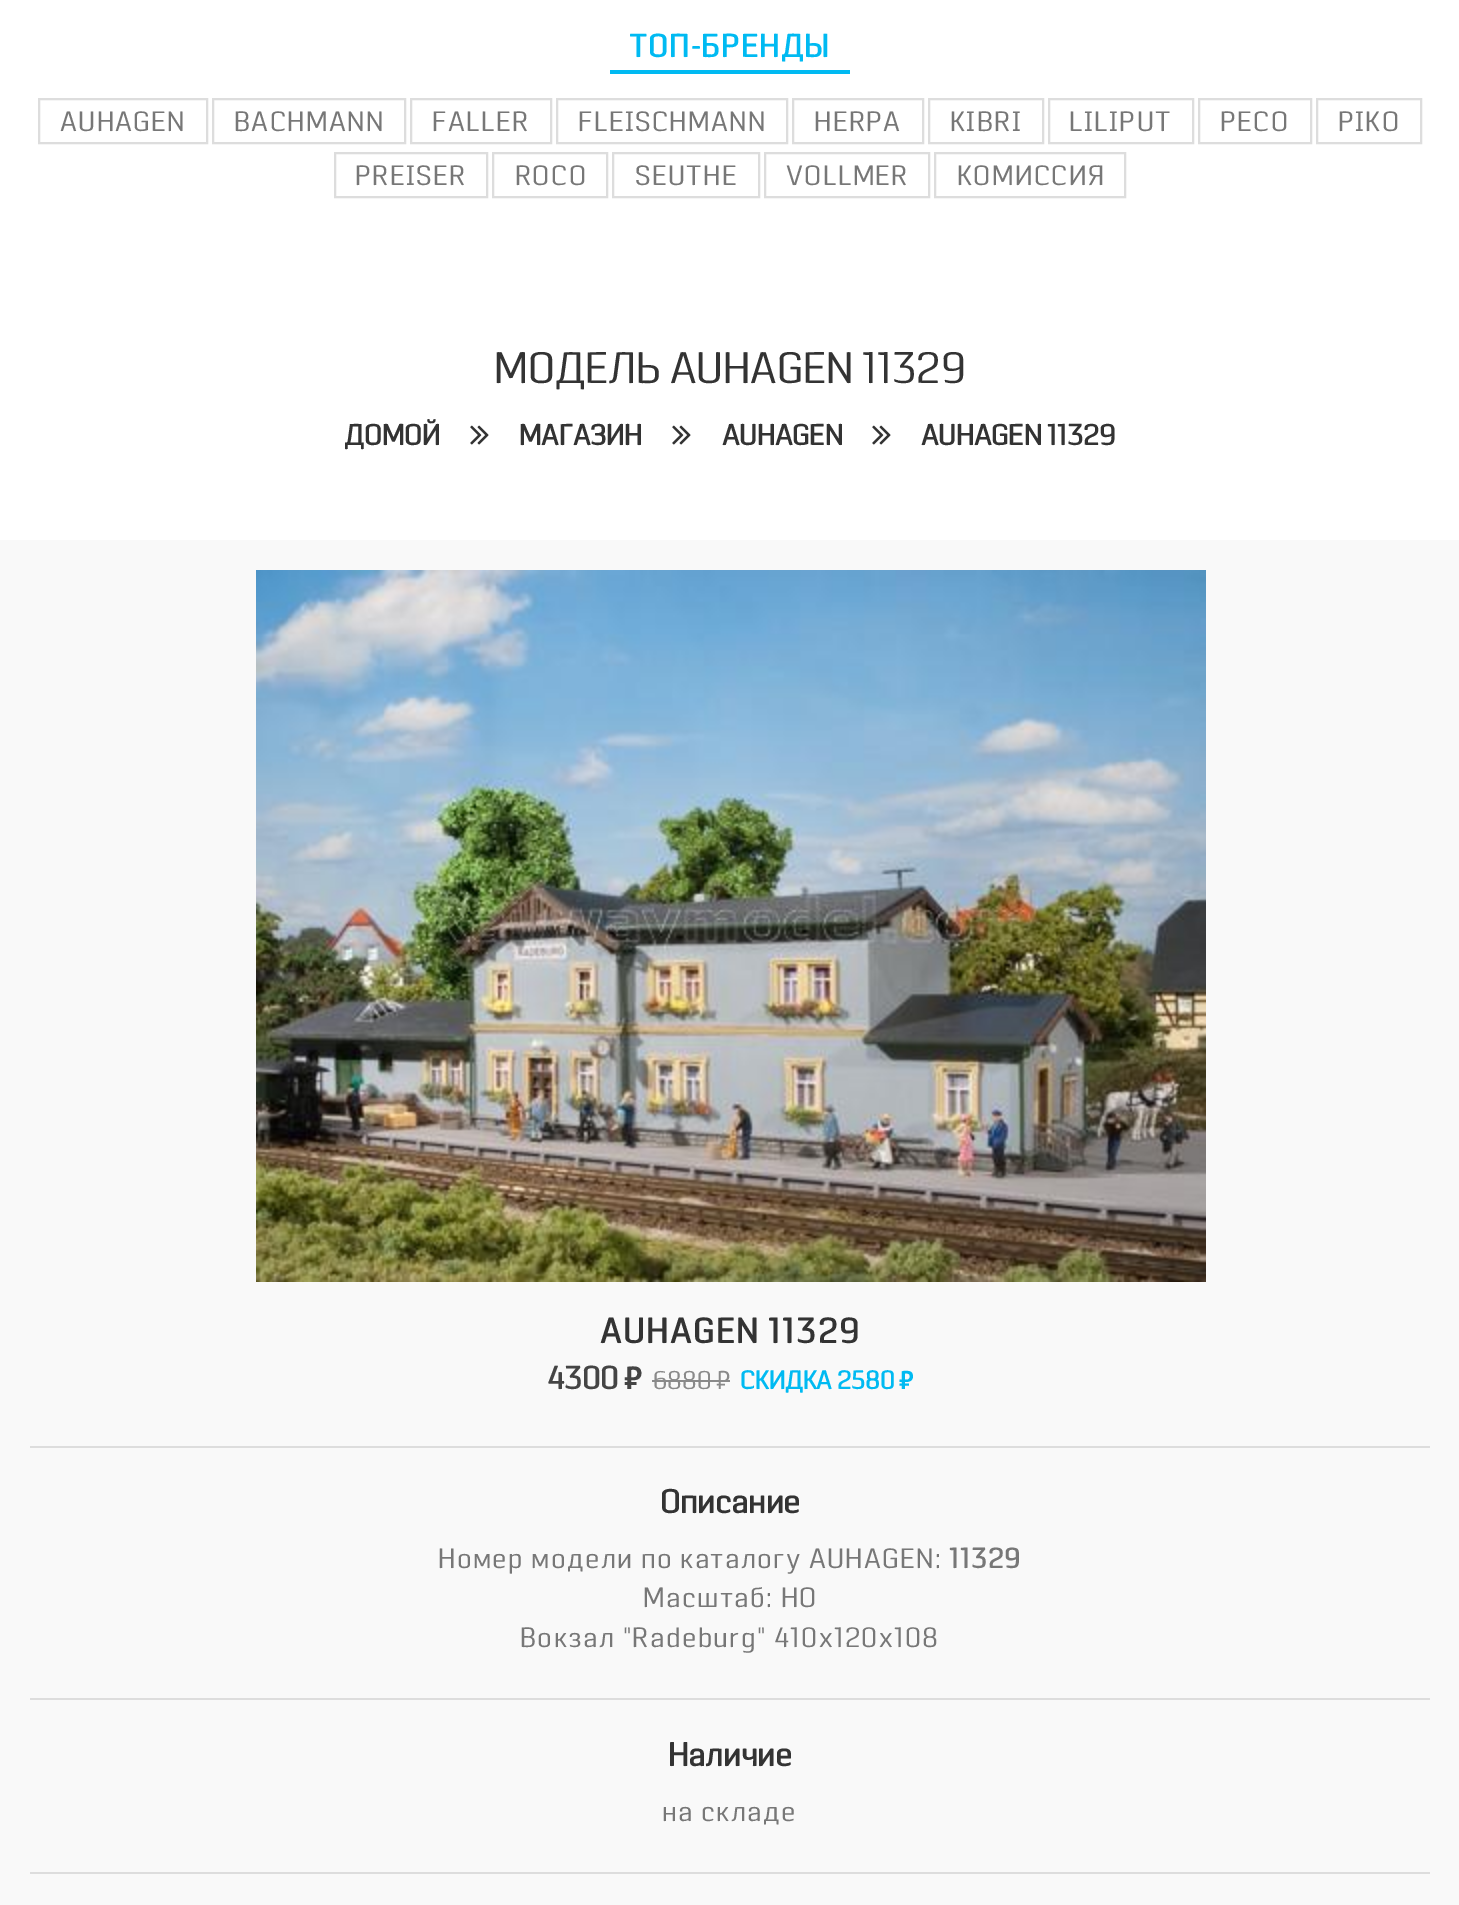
%!PS
<< /PageSize [1459 1905] >> setpagedevice
/rgb { 3 { 255 div 3 1 roll } repeat setrgbcolor } def
/font { [ exch dup neg 0 0 3 -1 roll 0 0 ] selectfont } def
/text { moveto show } def
/picture { 5 dict begin { /h /w /y /x /name } { exch def } forall
  gsave x y translate w h scale
  w h 8 [w 0 0 h 0 0] name (r) file false 3 colorimage grestore end } def
0 1905 translate 1 -1 scale
4 setmiterlimit
255 255 255 rgb
0 0 1459 1905 rectfill
0 186 242 rgb
610 70 240 4 rectfill
221 221 221 rgb
2 setlinewidth
39 99 168 44 rectstroke
213 99 192 44 rectstroke
411 99 140 44 rectstroke
557 99 230 44 rectstroke
793 99 130 44 rectstroke
929 99 114 44 rectstroke
1049 99 144 44 rectstroke
1199 99 112 44 rectstroke
1317 99 104 44 rectstroke
335 153 152 44 rectstroke
493 153 114 44 rectstroke
613 153 146 44 rectstroke
765 153 164 44 rectstroke
935 153 190 44 rectstroke
(img_01.rgb) 470 425 19 20 picture
(img_01.rgb) 672 425 19 20 picture
(img_01.rgb) 872 425 19 20 picture
249 249 249 rgb
0 540 1459 1365 rectfill
(img_02.rgb) 256 570 950 712 picture
138 138 138 rgb
652 1380 78 2 rectfill
221 221 221 rgb
30 1446 1400 2 rectfill
30 1698 1400 2 rectfill
30 1872 1400 2 rectfill
/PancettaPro-Bold 32 font
0 186 242 rgb
629 57 moveto 1.6 0 (ТОП-БРЕНДЫ) ashow
/PancettaPro-Regular 28 font
119 119 119 rgb
60 131 moveto 1.4 0 (AUHAGEN) ashow
234 131 moveto 1.4 0 (BACHMANN) ashow
432 131 moveto 1.4 0 (FALLER) ashow
578 131 moveto 1.4 0 (FLEISCHMANN) ashow
814 131 moveto 1.4 0 (HERPA) ashow
950 131 moveto 1.4 0 (KIBRI) ashow
1069 131 moveto 1.4 0 (LILIPUT) ashow
1220 131 moveto 1.4 0 (PECO) ashow
1338 131 moveto 1.4 0 (PIKO) ashow
355 185 moveto 1.4 0 (PREISER) ashow
515 185 moveto 1.4 0 (ROCO) ashow
635 185 moveto 1.4 0 (SEUTHE) ashow
786 185 moveto 1.4 0 (VOLLMER) ashow
957 185 moveto 1.4 0 (КОМИССИЯ) ashow
/PancettaPro-Regular 44.1 font
51 51 51 rgb
(МОДЕЛЬ AUHAGEN 11329) 494 383 text
/PancettaPro-Bold 29 font
(ДОМОЙ) 344 445 text
(МАГАЗИН) 519 445 text
(AUHAGEN) 722 445 text
(AUHAGEN 11329) 921 445 text
/PancettaPro-Bold 35 font
600 1343 moveto 2 0 (AUHAGEN 11329) ashow
/PancettaPro-Bold 32 font
68 68 68 rgb
(4300) 547 1389 text
/PTSans-Bold 32 font
(₽) 624 1389 text
/PancettaPro-Regular 25.75 font
138 138 138 rgb
(6880) 653 1389 text
/PTSans-Regular 25.75 font
(₽) 716 1389 text
/PancettaPro-Bold 25.75 font
0 186 242 rgb
(СКИДКА 2580) 740 1389 text
/PTSans-Bold 25.75 font
(₽) 899 1389 text
/PancettaPro-Bold 33 font
51 51 51 rgb
(Описание) 660 1513 text
/PancettaPro-Regular 28 font
119 119 119 rgb
438 1568 moveto 1.4 0 (Номер модели по каталогу AUHAGEN:) ashow
/PancettaPro-Bold 28 font
949 1568 moveto 1.4 0 (11329) ashow
/PancettaPro-Regular 28 font
643 1607 moveto 1.4 0 (Масштаб: HO) ashow
520 1647 moveto 1.4 0 (Вокзал "Radeburg" 410x120x108) ashow
/PancettaPro-Bold 33 font
51 51 51 rgb
(Наличие) 668 1766 text
/PancettaPro-Regular 28 font
119 119 119 rgb
662 1821 moveto 1.4 0 (на складе) ashow
showpage
